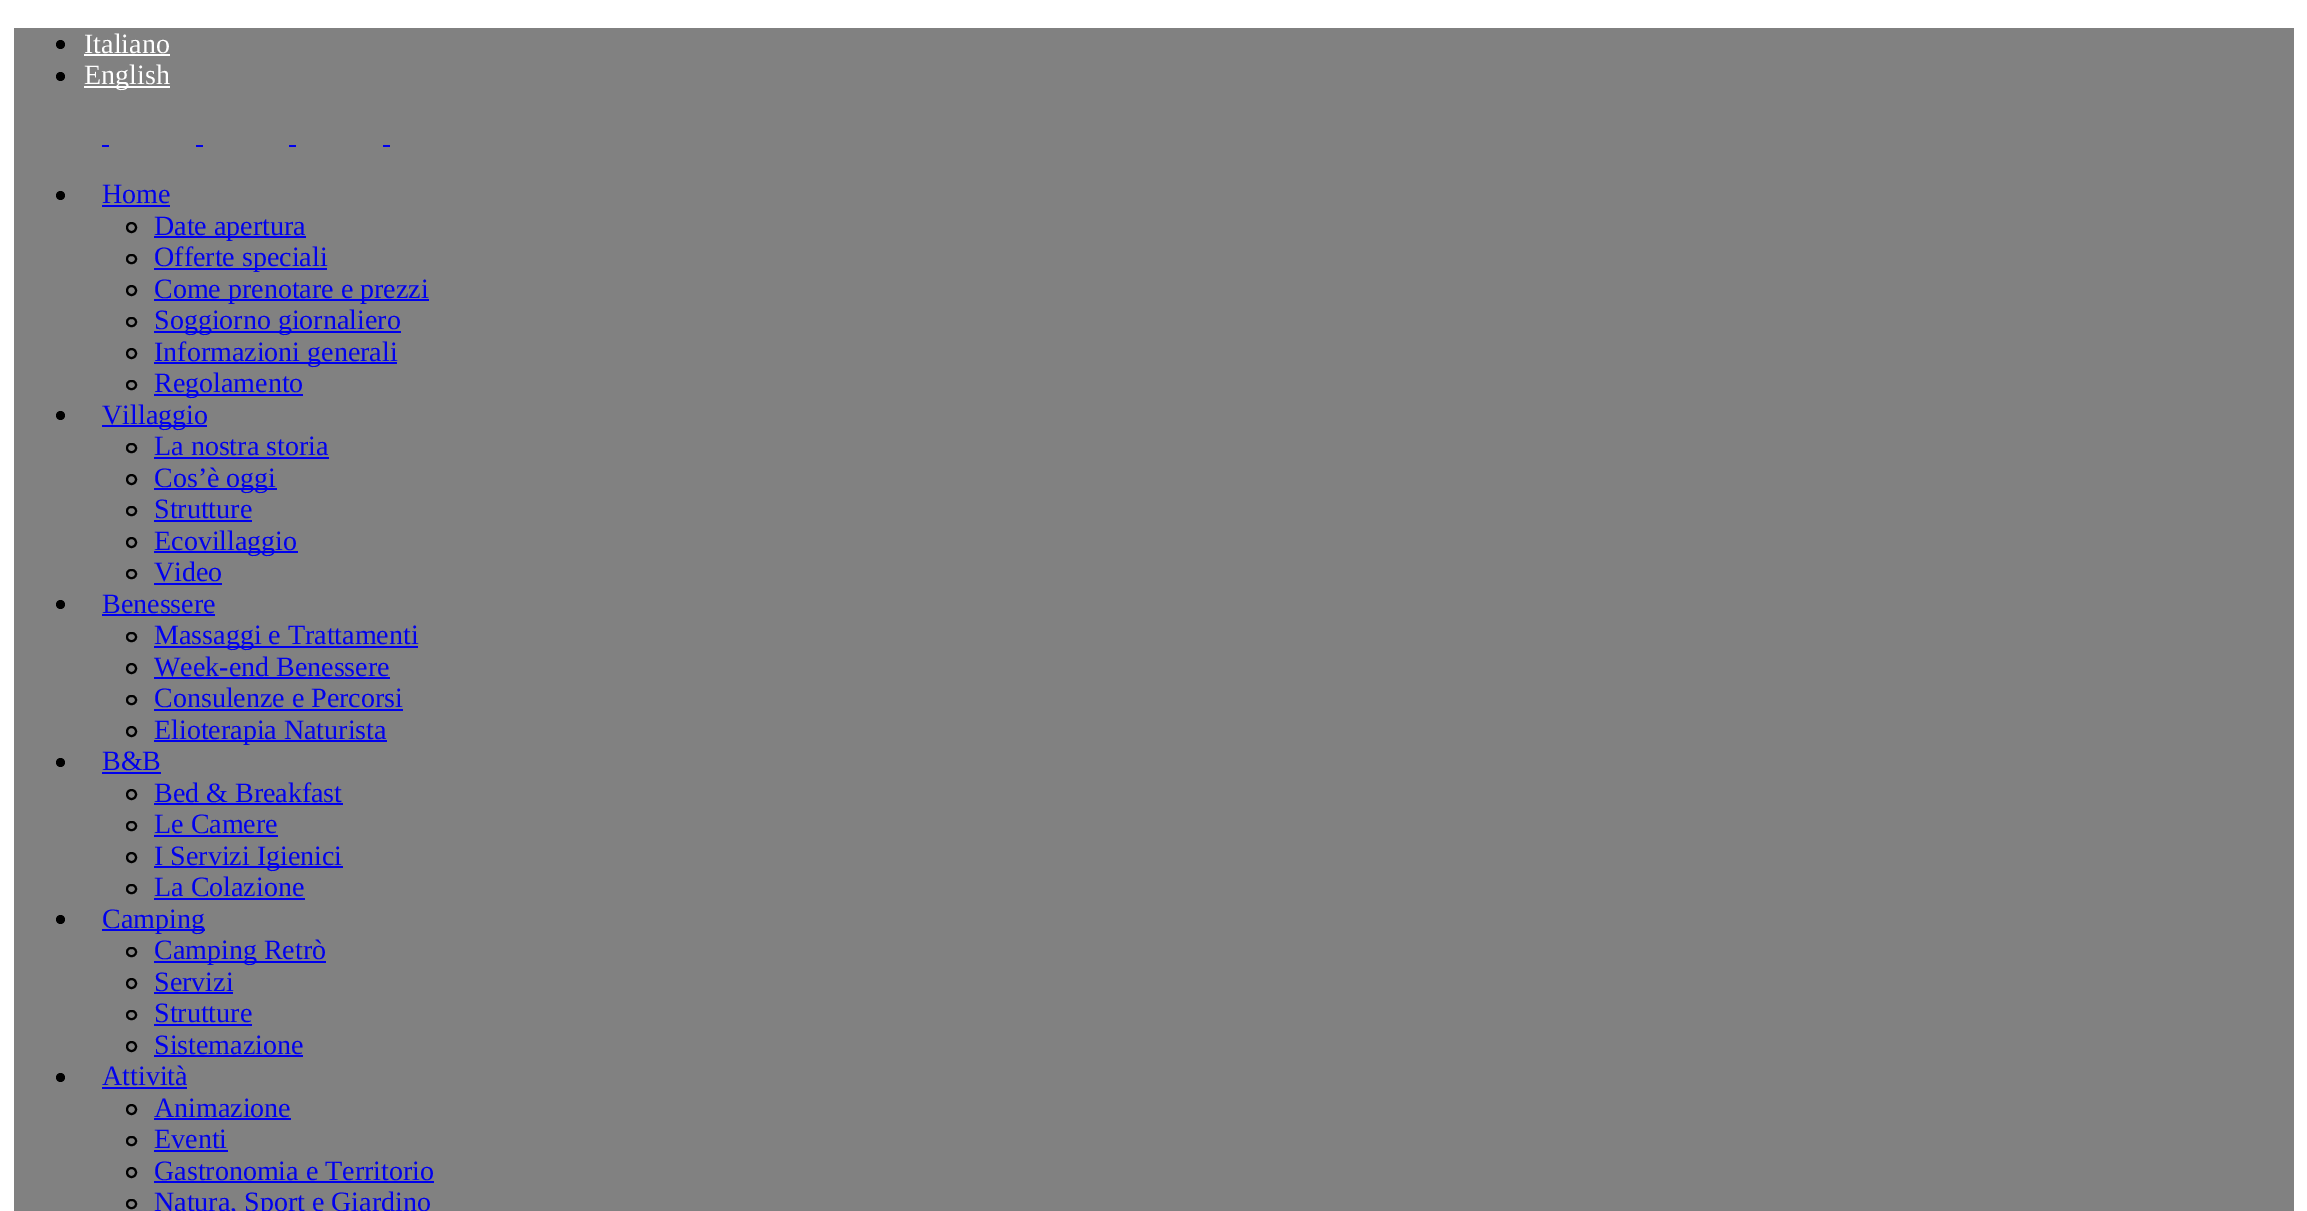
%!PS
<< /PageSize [2307 1211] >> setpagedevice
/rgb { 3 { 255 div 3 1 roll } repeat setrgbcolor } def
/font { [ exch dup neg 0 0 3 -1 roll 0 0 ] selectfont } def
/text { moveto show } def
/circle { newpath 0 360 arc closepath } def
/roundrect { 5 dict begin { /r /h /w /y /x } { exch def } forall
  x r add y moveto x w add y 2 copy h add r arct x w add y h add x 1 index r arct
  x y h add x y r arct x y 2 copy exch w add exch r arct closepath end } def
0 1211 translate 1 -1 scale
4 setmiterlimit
255 255 255 rgb
0 0 2307 1211 rectfill
129 129 129 rgb
14 28 2280 1183 rectfill
0 0 0 rgb
60.5 44.5 4.5 circle fill
255 255 255 rgb
84 54 86 2 rectfill
0 0 0 rgb
60.5 76.5 4.5 circle fill
255 255 255 rgb
84 86 86 2 rectfill
0 0 238 rgb
102 145 7 2 rectfill
196 145 7 2 rectfill
289 145 7 2 rectfill
383 145 7 2 rectfill
0 0 0 rgb
60.5 195.5 4.5 circle fill
0 0 238 rgb
102 205 68 2 rectfill
0 0 0 rgb
2 setlinewidth
131.5 227.5 4.5 circle stroke
0 0 238 rgb
154 236 152 2 rectfill
0 0 0 rgb
127 255 9 8 4 roundrect stroke
0 0 238 rgb
154 268 173 2 rectfill
0 0 0 rgb
131.5 290.5 4.5 circle stroke
0 0 238 rgb
154 299 275 2 rectfill
0 0 0 rgb
127 318 9 8 4 roundrect stroke
0 0 238 rgb
154 331 247 2 rectfill
0 0 0 rgb
131.5 353.5 4.5 circle stroke
0 0 238 rgb
154 362 243 2 rectfill
0 0 0 rgb
127 381 9 8 4 roundrect stroke
0 0 238 rgb
154 394 149 2 rectfill
0 0 0 rgb
60.5 415.5 4.5 circle fill
0 0 238 rgb
102 425 105 2 rectfill
0 0 0 rgb
127 444 9 8 4 roundrect stroke
0 0 238 rgb
154 457 175 2 rectfill
0 0 0 rgb
131.5 479.5 4.5 circle stroke
0 0 238 rgb
154 488 123 2 rectfill
0 0 0 rgb
127 507 9 8 4 roundrect stroke
0 0 238 rgb
154 520 98 2 rectfill
0 0 0 rgb
131.5 542.5 4.5 circle stroke
0 0 238 rgb
154 551 144 2 rectfill
0 0 0 rgb
127 570 9 8 4 roundrect stroke
0 0 238 rgb
154 583 68 2 rectfill
0 0 0 rgb
60.5 604.5 4.5 circle fill
0 0 238 rgb
102 614 113 2 rectfill
0 0 0 rgb
127 633 9 8 4 roundrect stroke
0 0 238 rgb
154 646 264 2 rectfill
0 0 0 rgb
131.5 668.5 4.5 circle stroke
0 0 238 rgb
154 677 236 2 rectfill
0 0 0 rgb
127 696 9 8 4 roundrect stroke
0 0 238 rgb
154 709 249 2 rectfill
0 0 0 rgb
131.5 731.5 4.5 circle stroke
0 0 238 rgb
154 740 233 2 rectfill
0 0 0 rgb
60.5 762.5 4.5 circle fill
0 0 238 rgb
102 772 59 2 rectfill
0 0 0 rgb
131.5 794.5 4.5 circle stroke
0 0 238 rgb
154 803 189 2 rectfill
0 0 0 rgb
127 822 9 8 4 roundrect stroke
0 0 238 rgb
154 835 124 2 rectfill
0 0 0 rgb
131.5 857.5 4.5 circle stroke
0 0 238 rgb
154 866 189 2 rectfill
0 0 0 rgb
127 885 9 8 4 roundrect stroke
0 0 238 rgb
154 898 151 2 rectfill
0 0 0 rgb
60.5 919.5 4.5 circle fill
0 0 238 rgb
102 929 103 2 rectfill
0 0 0 rgb
127 948 9 8 4 roundrect stroke
0 0 238 rgb
154 961 172 2 rectfill
0 0 0 rgb
131.5 983.5 4.5 circle stroke
0 0 238 rgb
154 992 79 2 rectfill
0 0 0 rgb
127 1011 9 8 4 roundrect stroke
0 0 238 rgb
154 1024 98 2 rectfill
0 0 0 rgb
131.5 1046.5 4.5 circle stroke
0 0 238 rgb
154 1055 149 2 rectfill
0 0 0 rgb
60.5 1077.5 4.5 circle fill
0 0 238 rgb
102 1087 85 2 rectfill
0 0 0 rgb
131.5 1109.5 4.5 circle stroke
0 0 238 rgb
154 1118 137 2 rectfill
0 0 0 rgb
127 1137 9 8 4 roundrect stroke
0 0 238 rgb
154 1150 74 2 rectfill
0 0 0 rgb
131.5 1172.5 4.5 circle stroke
0 0 238 rgb
154 1181 280 2 rectfill
0 0 0 rgb
127 1200 9 8 4 roundrect stroke
/LiberationSerif-Regular 28 font
255 255 255 rgb
(Italiano) 84 53 text
(English) 84 84 text
0 0 238 rgb
(Home) 102 203 text
(Date apertura) 154 235 text
(Offerte speciali) 154 266 text
(Come prenotare e prezzi) 154 298 text
(Soggiorno giornaliero) 154 329 text
(Informazioni generali) 154 361 text
(Regolamento) 154 392 text
(Villaggio) 102 424 text
(La nostra storia) 154 455 text
(Cos’è oggi) 154 487 text
(Strutture) 154 518 text
(Ecovillaggio) 154 550 text
(Video) 154 581 text
(Benessere) 102 613 text
(Massaggi e Trattamenti) 154 644 text
(Week-end Benessere) 154 676 text
(Consulenze e Percorsi) 154 707 text
(Elioterapia Naturista) 154 739 text
(B&B) 102 770 text
(Bed & Breakfast) 154 802 text
(Le Camere) 154 833 text
(I Servizi Igienici) 154 865 text
(La Colazione) 154 896 text
(Camping) 102 928 text
(Camping Retrò) 154 959 text
(Servizi) 154 991 text
(Strutture) 154 1022 text
(Sistemazione) 154 1054 text
(Attività) 102 1085 text
(Animazione) 154 1117 text
(Eventi) 154 1148 text
(Gastronomia e Territorio) 154 1180 text
(Natura, Sport e Giardino) 154 1211 text
showpage
